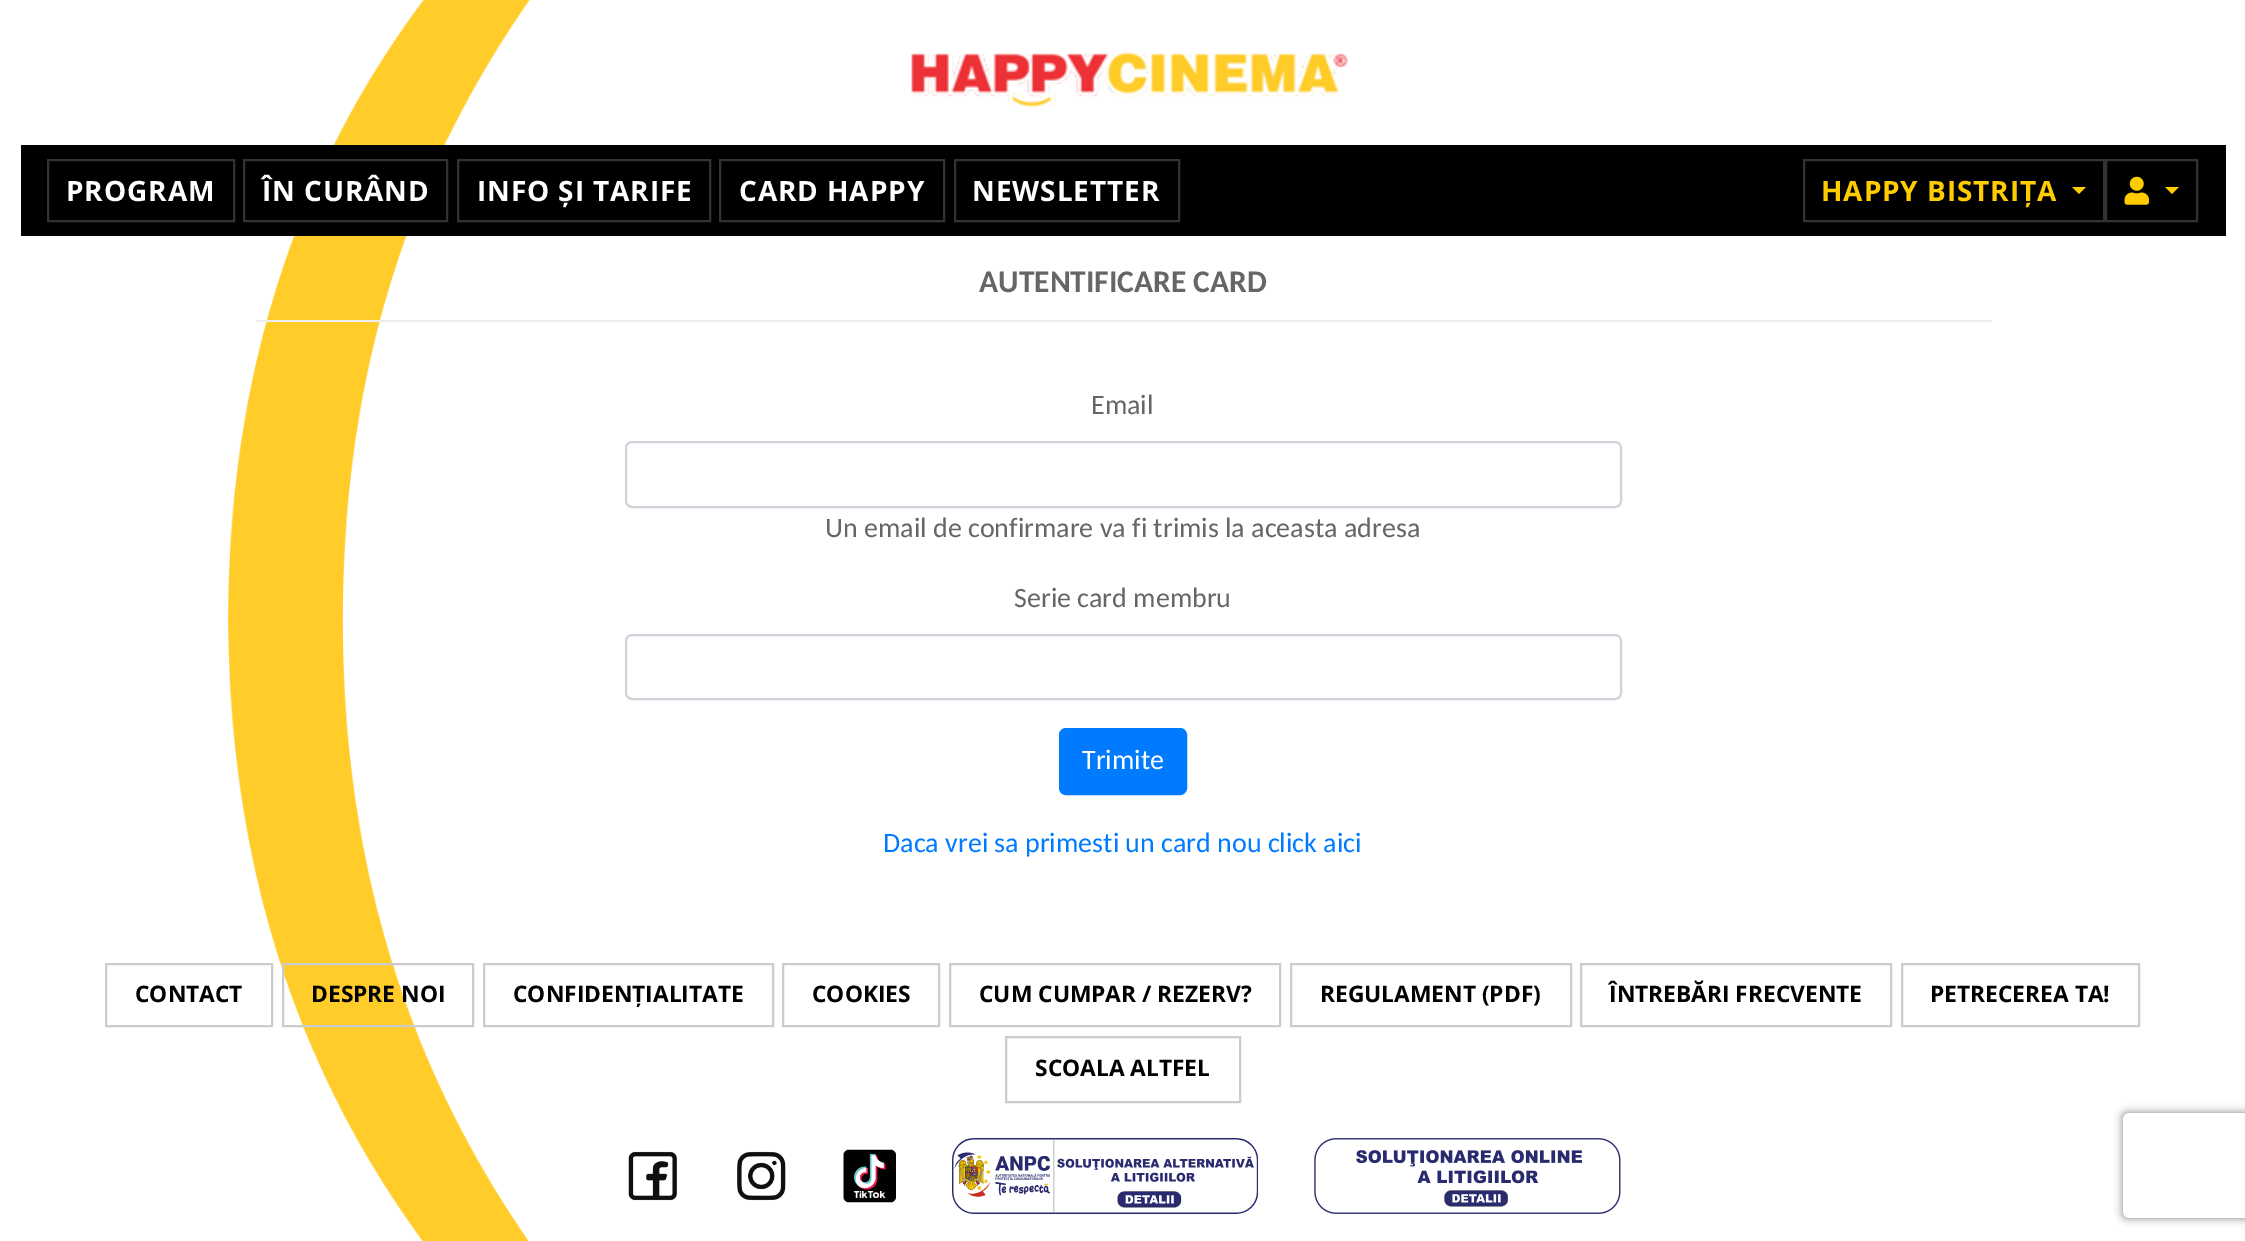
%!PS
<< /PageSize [2245 1241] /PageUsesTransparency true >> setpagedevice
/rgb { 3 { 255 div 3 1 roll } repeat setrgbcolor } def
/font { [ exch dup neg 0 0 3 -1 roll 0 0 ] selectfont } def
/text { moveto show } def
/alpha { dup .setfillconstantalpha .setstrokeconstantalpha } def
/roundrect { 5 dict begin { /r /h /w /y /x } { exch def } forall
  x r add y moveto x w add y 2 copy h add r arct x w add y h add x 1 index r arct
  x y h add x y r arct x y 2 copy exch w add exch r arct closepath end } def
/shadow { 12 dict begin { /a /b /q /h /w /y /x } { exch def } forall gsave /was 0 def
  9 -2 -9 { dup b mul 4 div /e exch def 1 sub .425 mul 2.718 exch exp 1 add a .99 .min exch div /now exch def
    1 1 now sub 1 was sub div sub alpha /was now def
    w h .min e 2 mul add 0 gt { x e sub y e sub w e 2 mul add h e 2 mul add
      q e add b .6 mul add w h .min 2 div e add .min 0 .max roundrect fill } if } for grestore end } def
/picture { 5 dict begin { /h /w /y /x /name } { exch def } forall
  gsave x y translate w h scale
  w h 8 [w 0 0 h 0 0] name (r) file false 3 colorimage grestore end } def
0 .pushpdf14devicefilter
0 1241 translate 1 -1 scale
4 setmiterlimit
255 255 255 rgb
0 0 2245 1241 rectfill
(img_01.rgb) 228 0 302 1241 picture
(img_02.rgb) 911 52 437 56 picture
0 0 0 rgb
21 145 2205 91 rectfill
51 51 51 rgb
2 setlinewidth
48 160 186 61 rectstroke
244 160 203 61 rectstroke
458 160 252 61 rectstroke
720 160 224 61 rectstroke
955 160 224 61 rectstroke
1804 160 300 61 rectstroke
255 204 0 rgb
2072 187 moveto 14 0 rlineto -7 7 rlineto closepath fill
51 51 51 rgb
2106 160 91 61 rectstroke
(img_03.rgb) 2124 176 25 29 picture
255 204 0 rgb
2165 187 moveto 14 0 rlineto -7 7 rlineto closepath fill
238 238 238 rgb
256 320 1736 2 rectfill
206 212 218 rgb
626 442 995 65 6 roundrect stroke
626 635 995 64 6 roundrect stroke
0 123 255 rgb
1060 729 126 65 6 roundrect gsave fill grestore
stroke
204 204 204 rgb
106 964 166 62 rectstroke
283 964 190 62 rectstroke
484 964 289 62 rectstroke
783 964 156 62 rectstroke
950 964 330 62 rectstroke
1291 964 280 62 rectstroke
1581 964 310 62 rectstroke
1902 964 237 62 rectstroke
1006 1037 234 65 rectstroke
(img_04.rgb) 628 1151 49 50 picture
(img_05.rgb) 737 1151 49 50 picture
(img_06.rgb) 843 1149 53 54 picture
(img_07.rgb) 952 1138 306 76 picture
(img_08.rgb) 1314 1138 307 76 picture
gsave
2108 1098 moveto 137 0 rlineto 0 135 rlineto -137 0 rlineto closepath 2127 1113 moveto 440 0 rlineto 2 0 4 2 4 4 rcurveto 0 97 rlineto 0 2 -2 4 -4 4 rcurveto -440 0 rlineto -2 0 -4 -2 -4 -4 rcurveto 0 -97 rlineto 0 -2 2 -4 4 -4 rcurveto closepath eoclip newpath
128 128 128 rgb
2123 1113 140 105 4 4.5 1 shadow
grestore
/OpenSans-Bold 28 font
255 255 255 rgb
66 201 moveto 0.9 0 (PROGRAM) ashow
262 201 moveto 0.9 0 (ÎN CURÂND) ashow
477 201 moveto 0.9 0 (INFO ȘI TARIFE) ashow
739 201 moveto 0.9 0 (CARD HAPPY) ashow
972 201 moveto 0.9 0 (NEWSLETTER) ashow
255 204 0 rgb
1821 201 moveto 0.9 0 (HAPPY BISTRIȚA) ashow
/Carlito-Bold 31.5 font
102 102 102 rgb
(AUTENTIFICARE CARD) 979 292 text
/Carlito-Regular 28 font
(Email) 1091 414 text
(Un email de confirmare va fi trimis la aceasta adresa) 825 537 text
(Serie card membru) 1014 607 text
255 255 255 rgb
(Trimite) 1082 769 text
0 123 255 rgb
(Daca vrei sa primesti un card nou click aici) 883 852 text
/OpenSans-Bold 22.75 font
0 0 0 rgb
(CONTACT) 135 1002 text
(DESPRE NOI) 311 1002 text
(CONFIDENȚIALITATE) 513 1002 text
(COOKIES) 812 1002 text
(CUM CUMPAR / REZERV?) 979 1002 text
(REGULAMENT \(PDF\)) 1320 1002 text
(ÎNTREBĂRI FRECVENTE) 1609 1002 text
(PETRECEREA TA!) 1930 1002 text
(SCOALA ALTFEL) 1035 1076 text
.poppdf14devicefilter showpage
